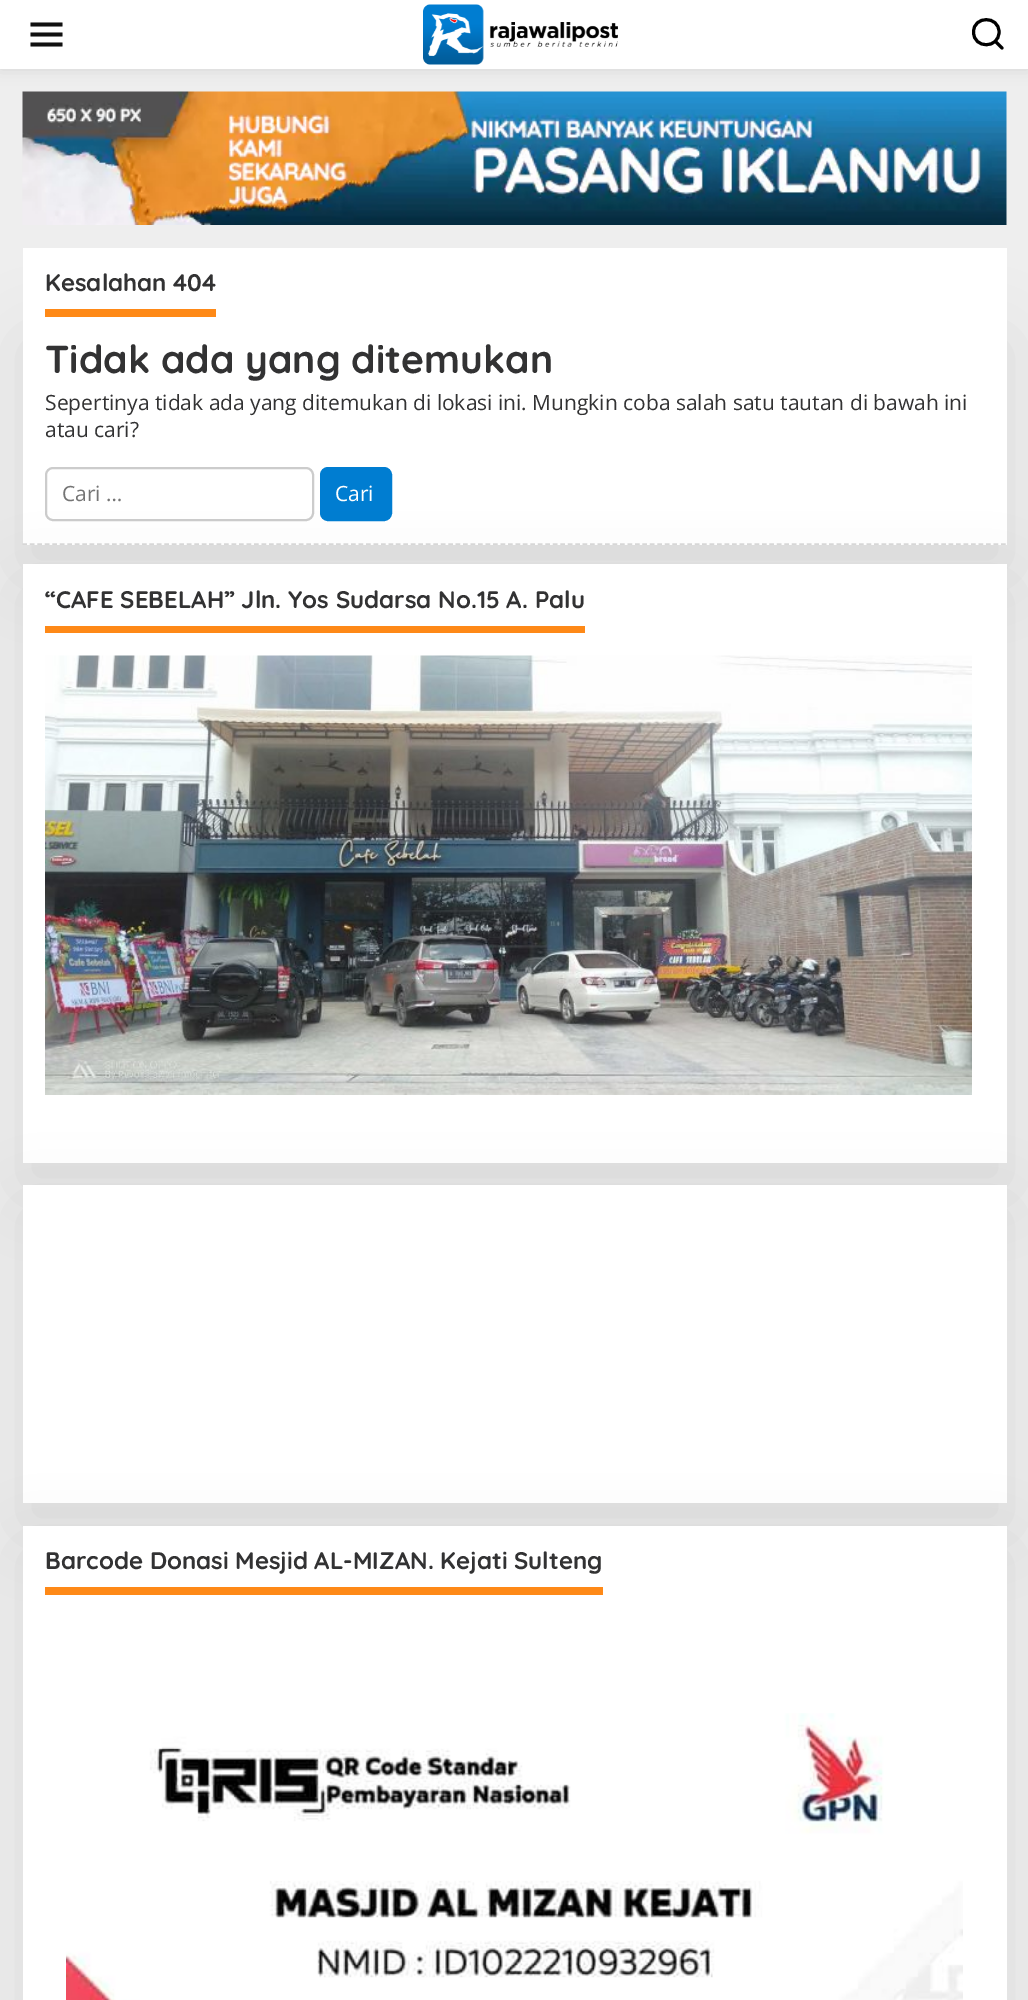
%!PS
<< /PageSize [1028 2000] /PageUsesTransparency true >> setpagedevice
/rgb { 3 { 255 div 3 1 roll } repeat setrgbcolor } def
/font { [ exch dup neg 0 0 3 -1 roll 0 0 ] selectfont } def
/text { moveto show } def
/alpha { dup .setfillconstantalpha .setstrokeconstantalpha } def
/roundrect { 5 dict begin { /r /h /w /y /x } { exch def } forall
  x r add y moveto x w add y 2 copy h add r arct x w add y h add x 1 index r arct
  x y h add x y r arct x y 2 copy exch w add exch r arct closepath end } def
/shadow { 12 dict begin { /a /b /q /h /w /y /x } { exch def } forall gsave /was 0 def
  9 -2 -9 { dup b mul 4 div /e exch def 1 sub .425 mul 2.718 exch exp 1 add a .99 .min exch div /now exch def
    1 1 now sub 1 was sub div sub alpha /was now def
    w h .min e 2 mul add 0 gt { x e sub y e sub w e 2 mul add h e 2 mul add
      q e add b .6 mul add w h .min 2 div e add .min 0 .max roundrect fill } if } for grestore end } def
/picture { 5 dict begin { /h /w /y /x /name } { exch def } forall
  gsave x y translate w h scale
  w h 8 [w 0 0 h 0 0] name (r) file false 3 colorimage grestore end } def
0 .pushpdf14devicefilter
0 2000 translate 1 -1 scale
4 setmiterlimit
238 238 238 rgb
0 0 1028 2000 rectfill
(img_02.rgb) 22 91 985 134 picture
0 0 0 rgb
0 0 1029 69 0 7.5 0.1 shadow
255 255 255 rgb
0 0 1028 69 rectfill
17 17 17 rgb
30.5 22.5 moveto 32 0 rlineto 0 4 rlineto -32 0 rlineto closepath 30.5 32.5 moveto 32 0 rlineto 0 4 rlineto -32 0 rlineto closepath 30.5 42.5 moveto 32 0 rlineto 0 4 rlineto -32 0 rlineto closepath fill
(img_01.rgb) 423 4 195 61 picture
0 0 0 rgb
3 setlinewidth
1 setlinecap
1002 48 moveto -6.5 -6.5 rlineto 999 32 moveto 0 17 -25.5 17 -25.5 0 rcurveto 0 -16.5 25.5 -16.5 25.5 0 rcurveto closepath stroke
23 341 984 228 0 34 0.07 shadow
255 255 255 rgb
23 248 984 297 rectfill
254 137 23 rgb
45 309 171 8 rectfill
217 217 217 rgb
1.5 setlinewidth
0 setlinecap
[4.5 2.97] 0 setdash
22.5 544 moveto 984 0 rlineto stroke
204 204 204 rgb
2 setlinewidth
[] 0 setdash
46 468 267 52 7 roundrect stroke
0 125 209 rgb
321 468 70 52 7 roundrect gsave fill grestore
stroke
0 0 0 rgb
23 588 984 599 0 34 0.07 shadow
255 255 255 rgb
23 564 984 599 rectfill
254 137 23 rgb
45 626 540 7 rectfill
(img_03.rgb) 45 655 927 440 picture
0 0 0 rgb
23 1209 984 318 0 34 0.07 shadow
255 255 255 rgb
23 1185 984 318 rectfill
0 0 0 rgb
23 1550 984 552 0 34 0.07 shadow
255 255 255 rgb
23 1526 984 474 rectfill
254 137 23 rgb
45 1587 558 8 rectfill
(img_04.rgb) 66 1713 897 287 picture
/Quicksand-Bold 24 font
50 50 51 rgb
(Kesalahan 404) 45 291 text
/Quicksand-Bold 39 font
(Tidak ada yang ditemukan) 45 373 text
/OpenSans-Regular 21 font
(Sepertinya tidak ada yang ditemukan di lokasi ini. Mungkin coba salah satu tautan di bawah ini) 45 410 text
(atau cari?) 45 437 text
117 117 117 rgb
(Cari …) 62 501 text
255 255 255 rgb
(Cari) 335 501 text
/Quicksand-Bold 24 font
50 50 51 rgb
(“CAFE SEBELAH” Jln. Yos Sudarsa No.15 A. Palu) 45 608 text
(Barcode Donasi Mesjid AL-MIZAN. Kejati Sulteng) 45 1569 text
.poppdf14devicefilter showpage
